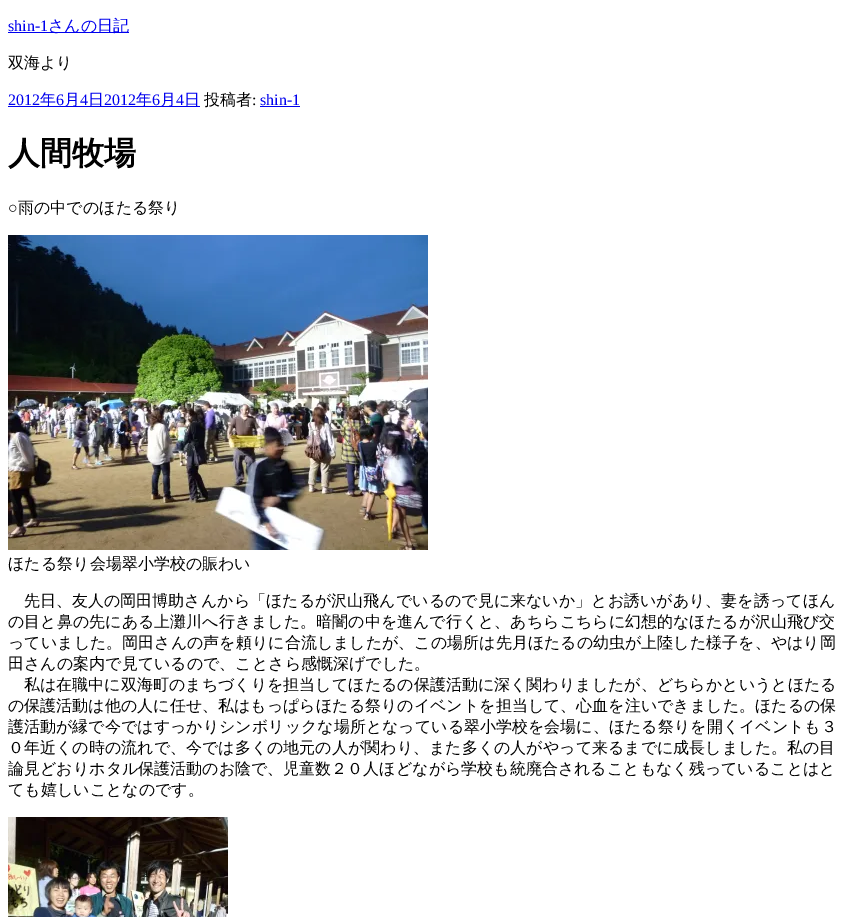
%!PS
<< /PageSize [850 917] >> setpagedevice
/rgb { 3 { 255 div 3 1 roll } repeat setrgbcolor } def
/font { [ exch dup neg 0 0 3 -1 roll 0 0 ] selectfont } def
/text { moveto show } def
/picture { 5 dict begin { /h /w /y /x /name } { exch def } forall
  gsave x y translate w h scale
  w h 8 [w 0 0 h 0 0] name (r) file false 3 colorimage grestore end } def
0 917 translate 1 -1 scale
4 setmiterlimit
255 255 255 rgb
0 0 850 917 rectfill
0 0 238 rgb
8 32 121 1 rectfill
8 106 192 1 rectfill
260 106 40 1 rectfill
(img_01.rgb) 8 235 420 315 picture
(img_02.rgb) 8 817 220 100 picture
/LiberationSerif-Regular 16 font
(shin-1) 8 31 text
/WenQuanYiZenHei-Medium 16 font
(さんの日記) 48 31 text
0 0 0 rgb
(双海より) 8 68 text
/LiberationSerif-Regular 16 font
0 0 238 rgb
(2012) 8 105 text
/WenQuanYiZenHei-Medium 16 font
(年) 40 105 text
/LiberationSerif-Regular 16 font
(6) 56 105 text
/WenQuanYiZenHei-Medium 16 font
(月) 64 105 text
/LiberationSerif-Regular 16 font
(4) 80 105 text
/WenQuanYiZenHei-Medium 16 font
(日) 88 105 text
/LiberationSerif-Regular 16 font
(2012) 104 105 text
/WenQuanYiZenHei-Medium 16 font
(年) 136 105 text
/LiberationSerif-Regular 16 font
(6) 152 105 text
/WenQuanYiZenHei-Medium 16 font
(月) 160 105 text
/LiberationSerif-Regular 16 font
(4) 176 105 text
/WenQuanYiZenHei-Medium 16 font
(日) 184 105 text
0 0 0 rgb
(投稿者) 204 105 text
/LiberationSerif-Regular 16 font
(:) 252 105 text
0 0 238 rgb
(shin-1) 260 105 text
/WenQuanYiZenHei-Bold 32 font
0 0 0 rgb
(人間牧場) 8 164 text
/LiberationSerif-Regular 16 font
(○) 8 213 text
/WenQuanYiZenHei-Medium 16 font
(雨の中でのほたる祭り) 18 213 text
(ほたる祭り会場翠小学校の賑わい) 8 569 text
(先日、友人の岡田博助さんから「ほたるが沢山飛んでいるので見に来ないか」とお誘いがあり、妻を誘ってほん) 24 606 text
(の目と鼻の先にある上灘川へ行きました。暗闇の中を進んで行くと、あちらこちらに幻想的なほたるが沢山飛び交) 8 627 text
(っていました。岡田さんの声を頼りに合流しましたが、この場所は先月ほたるの幼虫が上陸した様子を、やはり岡) 8 648 text
(田さんの案内で見ているので、ことさら感慨深げでした。) 8 669 text
(私は在職中に双海町のまちづくりを担当してほたるの保護活動に深く関わりましたが、どちらかというとほたる) 24 690 text
(の保護活動は他の人に任せ、私はもっぱらほたる祭りのイベントを担当して、心血を注いできました。ほたるの保) 8 711 text
(護活動が縁で今ではすっかりシンボリックな場所となっている翠小学校を会場に、ほたる祭りを開くイベントも３) 8 732 text
(０年近くの時の流れで、今では多くの地元の人が関わり、また多くの人がやって来るまでに成長しました。私の目) 8 753 text
(論見どおりホタル保護活動のお陰で、児童数２０人ほどながら学校も統廃合されることもなく残っていることはと) 8 774 text
(ても嬉しいことなのです。) 8 795 text
showpage
